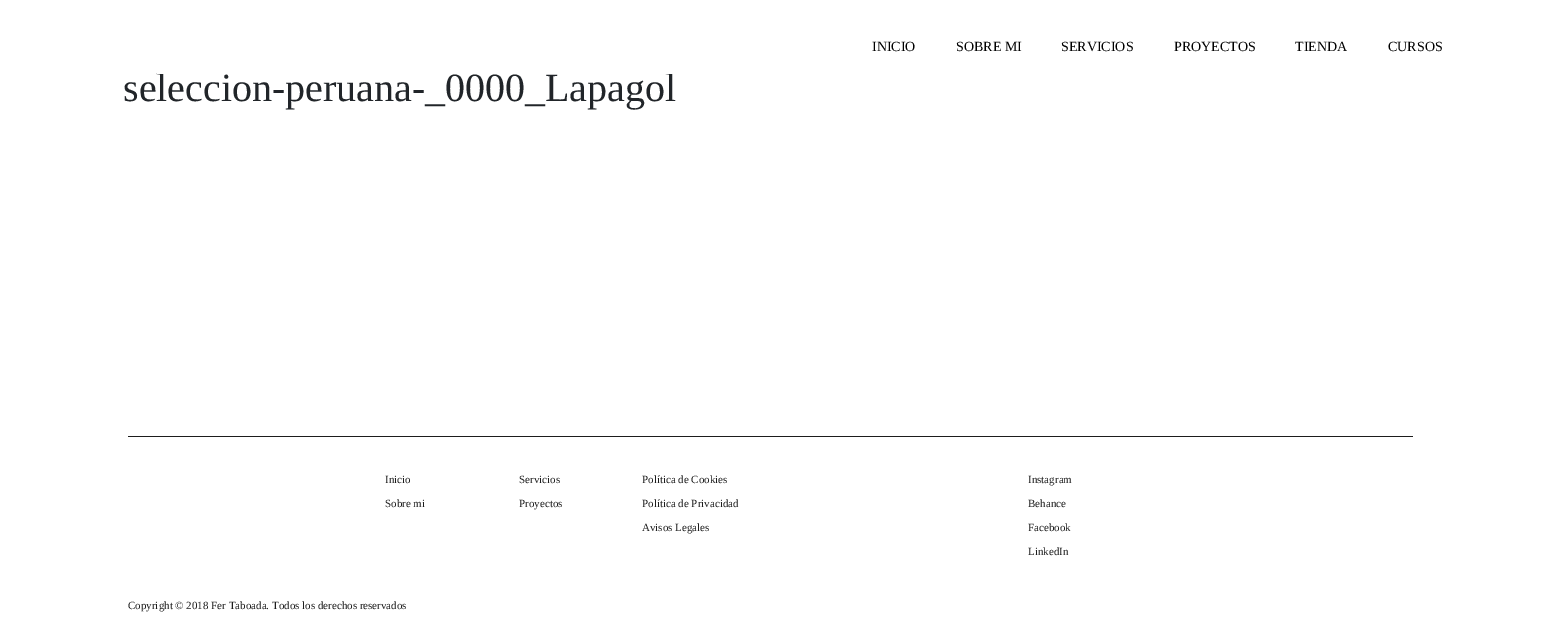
%!PS
<< /PageSize [1542 641] >> setpagedevice
/rgb { 3 { 255 div 3 1 roll } repeat setrgbcolor } def
/font { [ exch dup neg 0 0 3 -1 roll 0 0 ] selectfont } def
/text { moveto show } def
0 641 translate 1 -1 scale
4 setmiterlimit
255 255 255 rgb
0 0 1542 641 rectfill
29 29 29 rgb
128 436 1285 1 rectfill
/LiberationSerif-Regular 14 font
0 0 0 rgb
(INICIO) 872 51 text
(SOBRE MI) 956 51 text
(SERVICIOS) 1061 51 text
(PROYECTOS) 1174 51 text
(TIENDA) 1295 51 text
(CURSOS) 1388 51 text
/LiberationSerif-Regular 40 font
33 37 41 rgb
(seleccion-peruana-_0000_Lapagol) 123 101 text
255 255 255 rgb
157 73 516 1 rectfill
/LiberationSerif-Regular 11 font
29 29 29 rgb
(Inicio) 385 483 text
(Servicios) 519 483 text
(Sobre mi) 385 507 text
(Proyectos) 519 507 text
(Política de Cookies) 642 483 text
(Política de Privacidad) 642 507 text
(Avisos Legales) 642 531 text
(Instagram) 1028 483 text
(Behance) 1028 507 text
(Facebook) 1028 531 text
(LinkedIn) 1028 555 text
(Copyright © 2018 Fer Taboada. Todos los derechos reservados) 128 609 text
showpage
